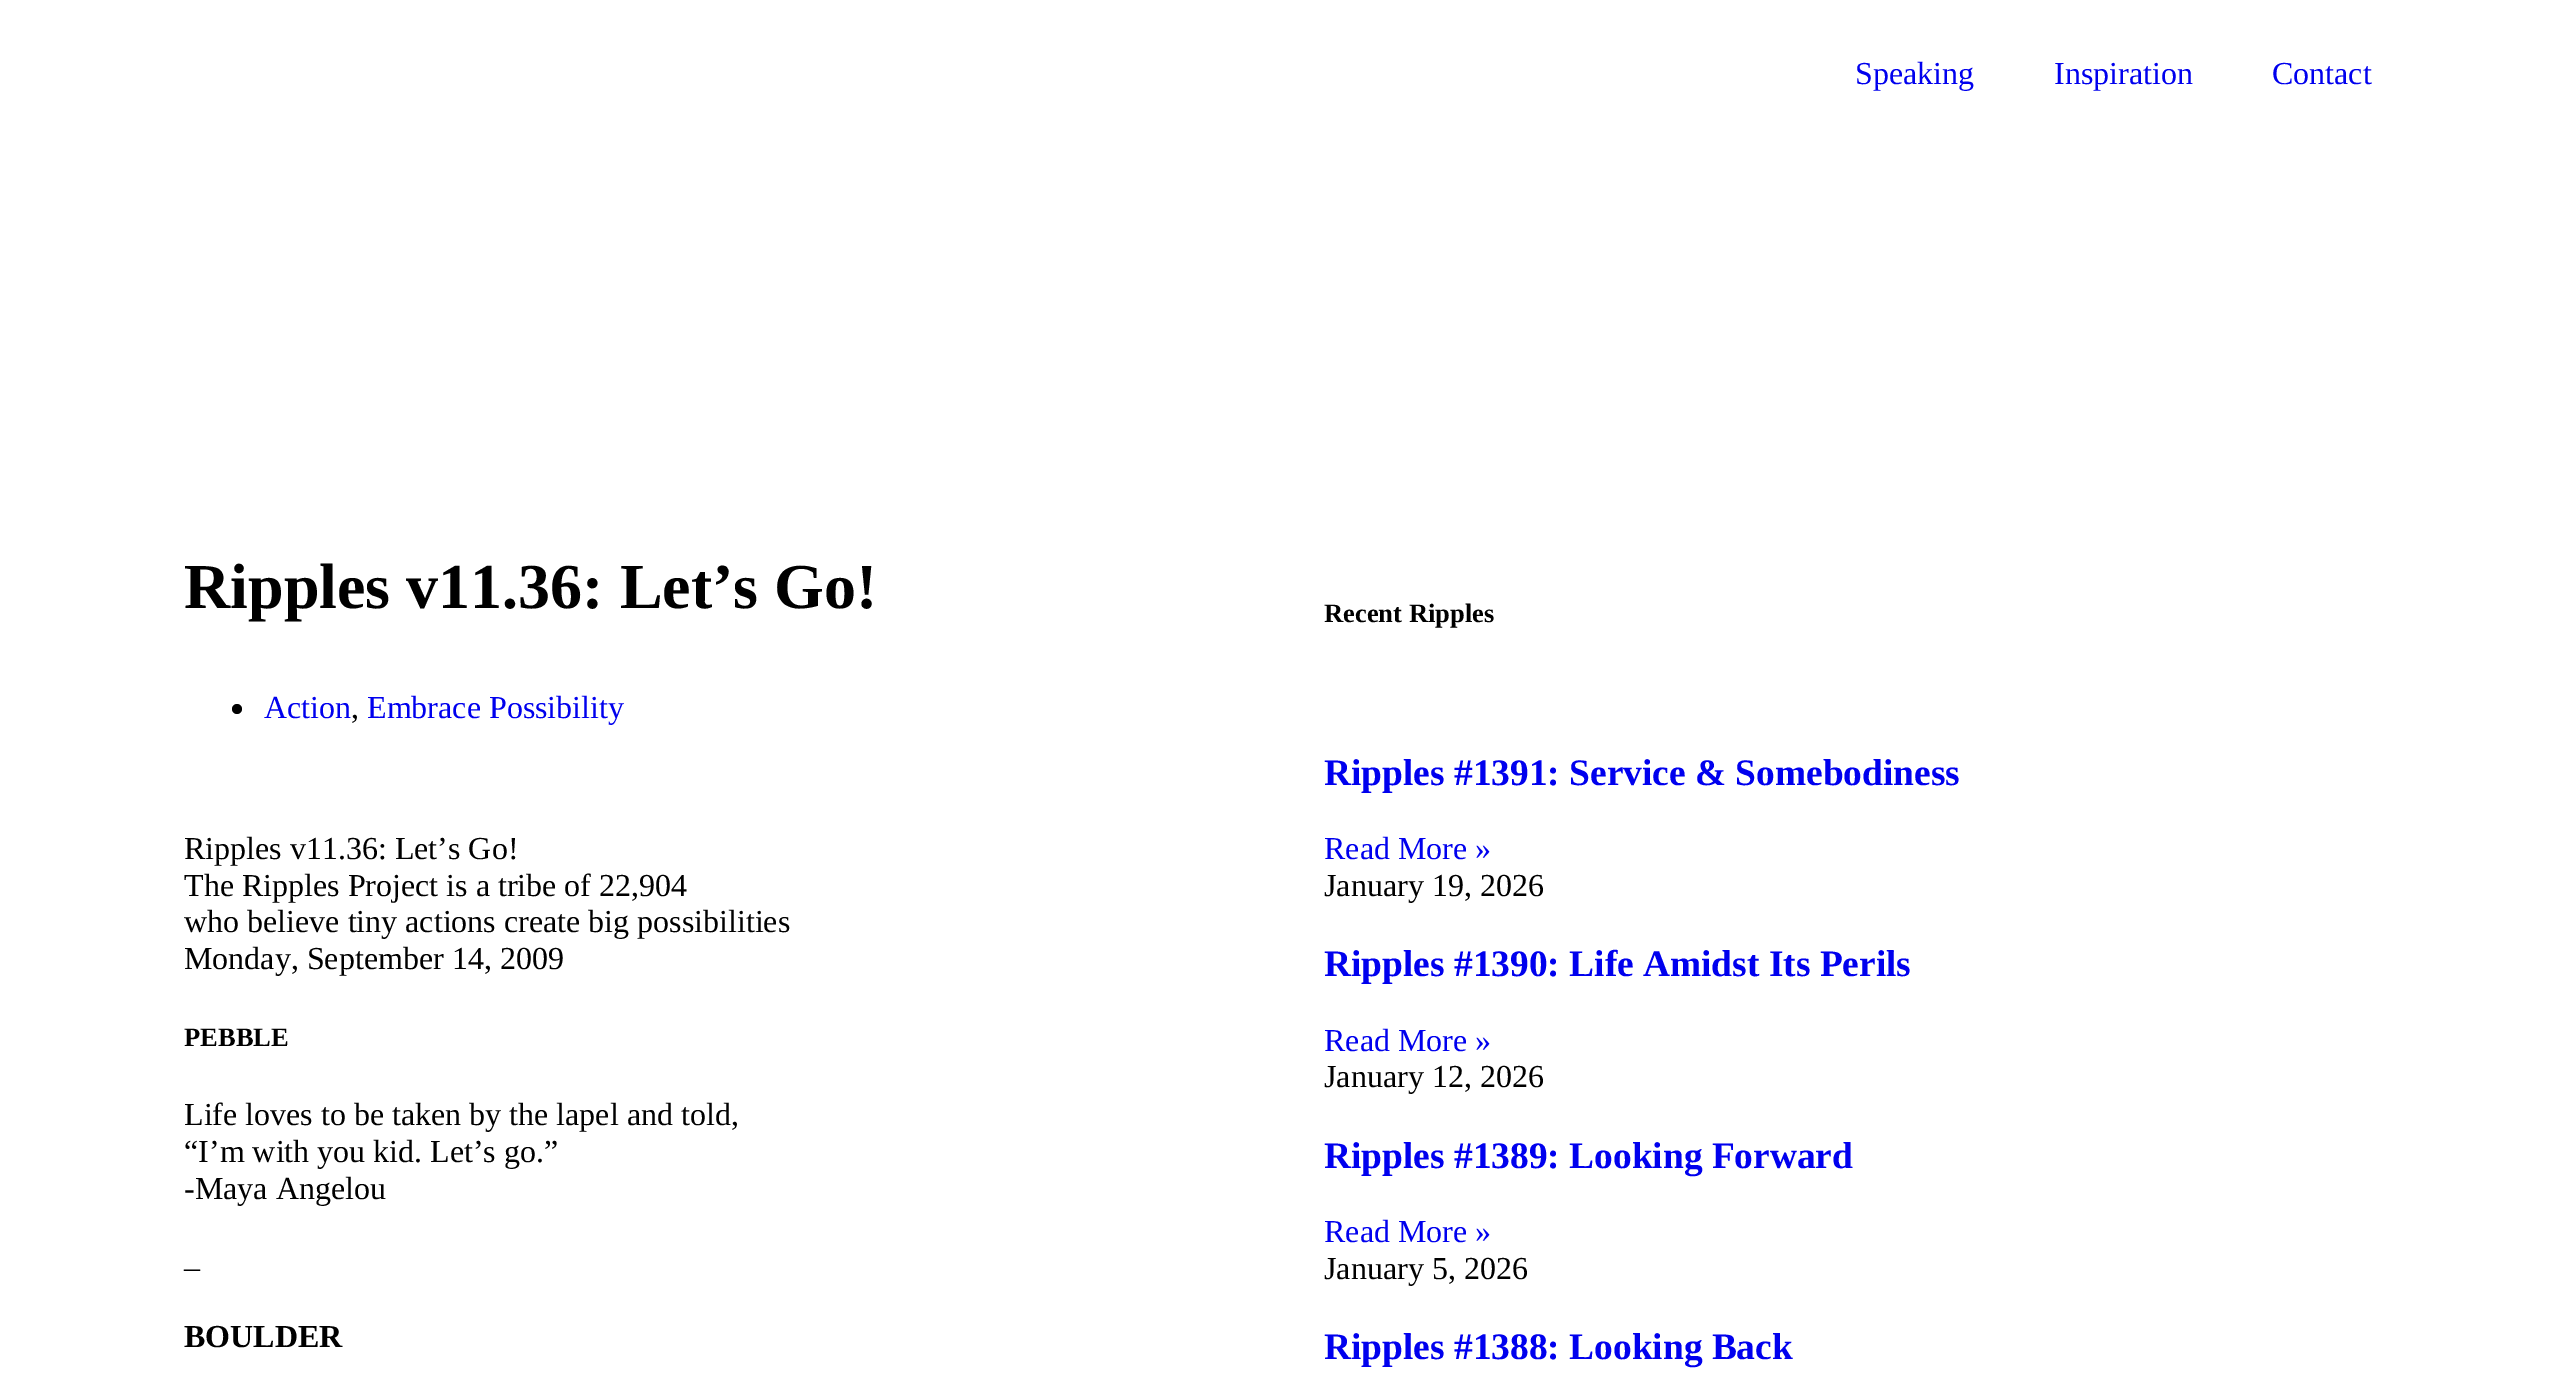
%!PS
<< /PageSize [2568 1391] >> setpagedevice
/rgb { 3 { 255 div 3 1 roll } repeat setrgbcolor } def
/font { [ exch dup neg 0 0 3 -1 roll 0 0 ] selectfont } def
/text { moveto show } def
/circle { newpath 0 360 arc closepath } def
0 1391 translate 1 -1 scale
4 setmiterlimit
255 255 255 rgb
0 0 2568 1391 rectfill
0 0 0 rgb
237 709 5 circle fill
/LiberationSerif-Regular 32 font
0 0 238 rgb
(Speaking) 1855 84 text
(Inspiration) 2054 84 text
(Contact) 2272 84 text
/LiberationSerif-Bold 64 font
0 0 0 rgb
(Ripples v11.36: Let’s Go!) 184 608 text
/LiberationSerif-Regular 32 font
0 0 238 rgb
(Action) 264 718 text
(Embrace Possibility) 367 718 text
0 0 0 rgb
(,) 351 718 text
(Ripples v11.36: Let’s Go!) 184 859 text
(The Ripples Project is a tribe of 22,904) 184 896 text
(who believe tiny actions create big possibilities) 184 932 text
(Monday, September 14, 2009) 184 969 text
/LiberationSerif-Bold 26.5 font
(PEBBLE) 184 1046 text
/LiberationSerif-Regular 32 font
(Life loves to be taken by the lapel and told,) 184 1125 text
(“I’m with you kid. Let’s go.”) 184 1162 text
(-Maya Angelou) 184 1199 text
(_) 184 1267 text
/LiberationSerif-Bold 32 font
(BOULDER) 184 1347 text
/LiberationSerif-Bold 26.5 font
(Recent Ripples) 1324 622 text
/LiberationSerif-Bold 37.4 font
0 0 238 rgb
(Ripples #1391: Service & Somebodiness) 1324 785 text
/LiberationSerif-Regular 32 font
(Read More ») 1324 859 text
0 0 0 rgb
(January 19, 2026) 1324 896 text
/LiberationSerif-Bold 37.4 font
0 0 238 rgb
(Ripples #1390: Life Amidst Its Perils) 1324 976 text
/LiberationSerif-Regular 32 font
(Read More ») 1324 1051 text
0 0 0 rgb
(January 12, 2026) 1324 1087 text
/LiberationSerif-Bold 37.4 font
0 0 238 rgb
(Ripples #1389: Looking Forward) 1324 1168 text
/LiberationSerif-Regular 32 font
(Read More ») 1324 1242 text
0 0 0 rgb
(January 5, 2026) 1324 1279 text
/LiberationSerif-Bold 37.4 font
0 0 238 rgb
(Ripples #1388: Looking Back) 1324 1359 text
showpage
